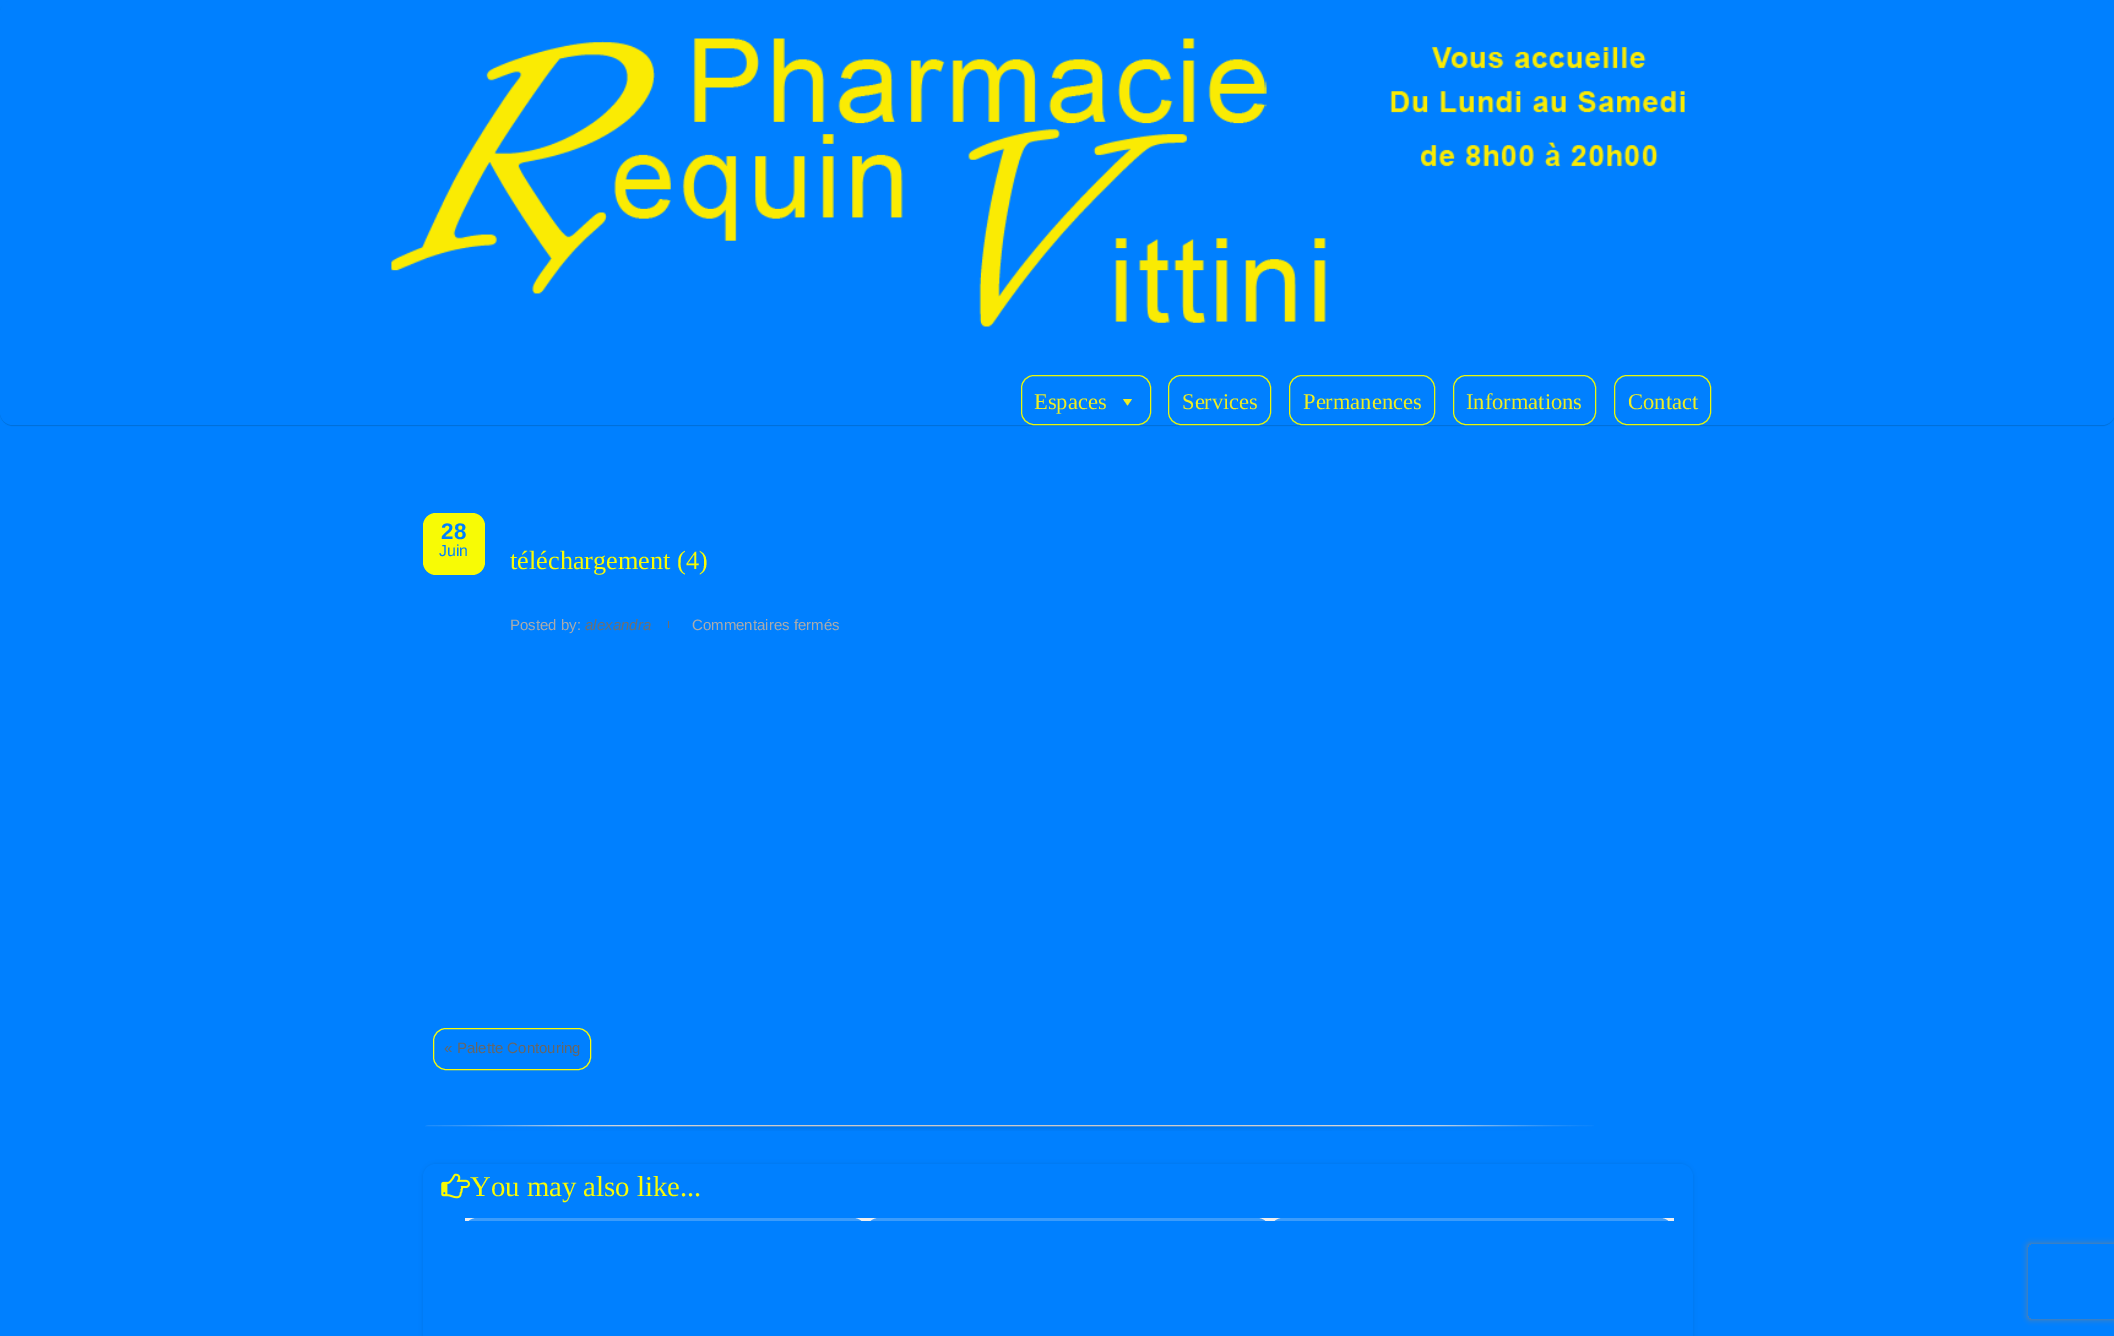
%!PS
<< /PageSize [2114 1336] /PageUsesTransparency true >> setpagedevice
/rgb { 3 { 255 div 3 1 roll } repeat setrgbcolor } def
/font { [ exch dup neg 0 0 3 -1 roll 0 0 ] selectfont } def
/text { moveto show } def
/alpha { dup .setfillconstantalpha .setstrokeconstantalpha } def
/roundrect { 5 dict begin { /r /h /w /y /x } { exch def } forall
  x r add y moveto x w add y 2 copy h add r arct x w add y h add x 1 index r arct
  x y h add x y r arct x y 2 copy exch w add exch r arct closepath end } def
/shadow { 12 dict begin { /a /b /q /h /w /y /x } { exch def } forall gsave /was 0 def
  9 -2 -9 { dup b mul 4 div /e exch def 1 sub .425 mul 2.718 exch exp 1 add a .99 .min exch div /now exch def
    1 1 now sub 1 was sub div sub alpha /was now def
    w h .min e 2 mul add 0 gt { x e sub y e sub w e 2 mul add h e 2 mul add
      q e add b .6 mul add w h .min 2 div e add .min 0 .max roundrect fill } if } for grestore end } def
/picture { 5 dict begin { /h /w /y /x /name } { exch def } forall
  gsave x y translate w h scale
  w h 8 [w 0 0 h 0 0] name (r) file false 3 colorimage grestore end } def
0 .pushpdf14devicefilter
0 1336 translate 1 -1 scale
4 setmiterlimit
0 128 255 rgb
0 0 2114 1336 rectfill
0 120 240 rgb
0 412 moveto 0 8 6 14 13 14 rcurveto 2089 0 rlineto 7 0 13 -6 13 -14 rcurveto 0 7 -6 13 -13 13 rcurveto -2090 0 rlineto -6 0 -12 -6 -12 -13 rcurveto closepath fill
0 0 0 rgb
0 1 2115 425 13 0.5 0.1 shadow
0 128 255 rgb
0 0 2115 425 13 roundrect fill
(img_01.rgb) 391 38 1294 289 picture
233 247 9 rgb
1021.5 375.5 129 49 12.5 roundrect stroke
238 238 34 rgb
1132 399 moveto -4.5 6.5 rlineto -4.5 -6.5 rlineto closepath fill
233 247 9 rgb
1168.5 375.5 102 49 12.5 roundrect stroke
1289.5 375.5 145 49 12.5 roundrect stroke
1453.5 375.5 142 49 12.5 roundrect stroke
1614.5 375.5 96 49 12.5 roundrect stroke
248 251 5 rgb
423 513 62 62 13 roundrect fill
111 111 111 rgb
668 621 1 7 rectfill
248 251 5 rgb
433.5 1028.5 157 41 12.5 roundrect stroke
(img_02.rgb) 425 1125 1169 6 picture
0 0 0 rgb
423 1164 1270 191 13 2 0.1 shadow
0 128 255 rgb
423 1164 1270 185 13 roundrect fill
(img_03.rgb) 441 1173 29 26 picture
238 238 238 rgb
465 1218 1209 3 rectfill
0.75 alpha
0 128 255 rgb
464 1218 402 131 13 roundrect fill
866 1218 404 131 13 roundrect fill
1270 1218 403 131 13 roundrect fill
gsave
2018 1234 moveto 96 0 rlineto 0 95 rlineto -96 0 rlineto closepath 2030.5 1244 moveto 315 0 rlineto 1.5 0 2.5 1 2.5 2.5 rcurveto 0 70 rlineto 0 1.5 -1 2.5 -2.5 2.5 rcurveto -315 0 rlineto -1.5 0 -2.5 -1 -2.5 -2.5 rcurveto 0 -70 rlineto 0 -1.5 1 -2.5 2.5 -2.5 rcurveto closepath eoclip newpath
1 alpha
128 128 128 rgb
2028 1244 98 75 2.5 3 1 shadow
grestore
/LiberationSerif-Regular 22.5 font
1 alpha
238 238 34 rgb
(Espaces) 1034 409 text
(Services) 1182 409 text
(Permanences) 1303 409 text
(Informations) 1466 409 text
(Contact) 1628 409 text
/LiberationSans-Bold 22.5 font
0 128 255 rgb
(28) 441 539 text
/LiberationSans-Regular 16 font
(Juin) 439 556 text
/LiberationSerif-Regular 26.25 font
248 251 5 rgb
(téléchargement \(4\)) 510 569 text
/LiberationSans-Regular 15 font
171 171 171 rgb
(Posted by:) 510 630 text
/LiberationSans-Italic 15 font
111 111 111 rgb
(alexandra) 585 630 text
/LiberationSans-Regular 15 font
171 171 171 rgb
(Commentaires fermés) 692 630 text
102 102 102 rgb
(« Palette Contouring) 444 1053 text
/LiberationSerif-Regular 28.75 font
248 251 5 rgb
(You may also like...) 470 1196 text
.poppdf14devicefilter showpage
